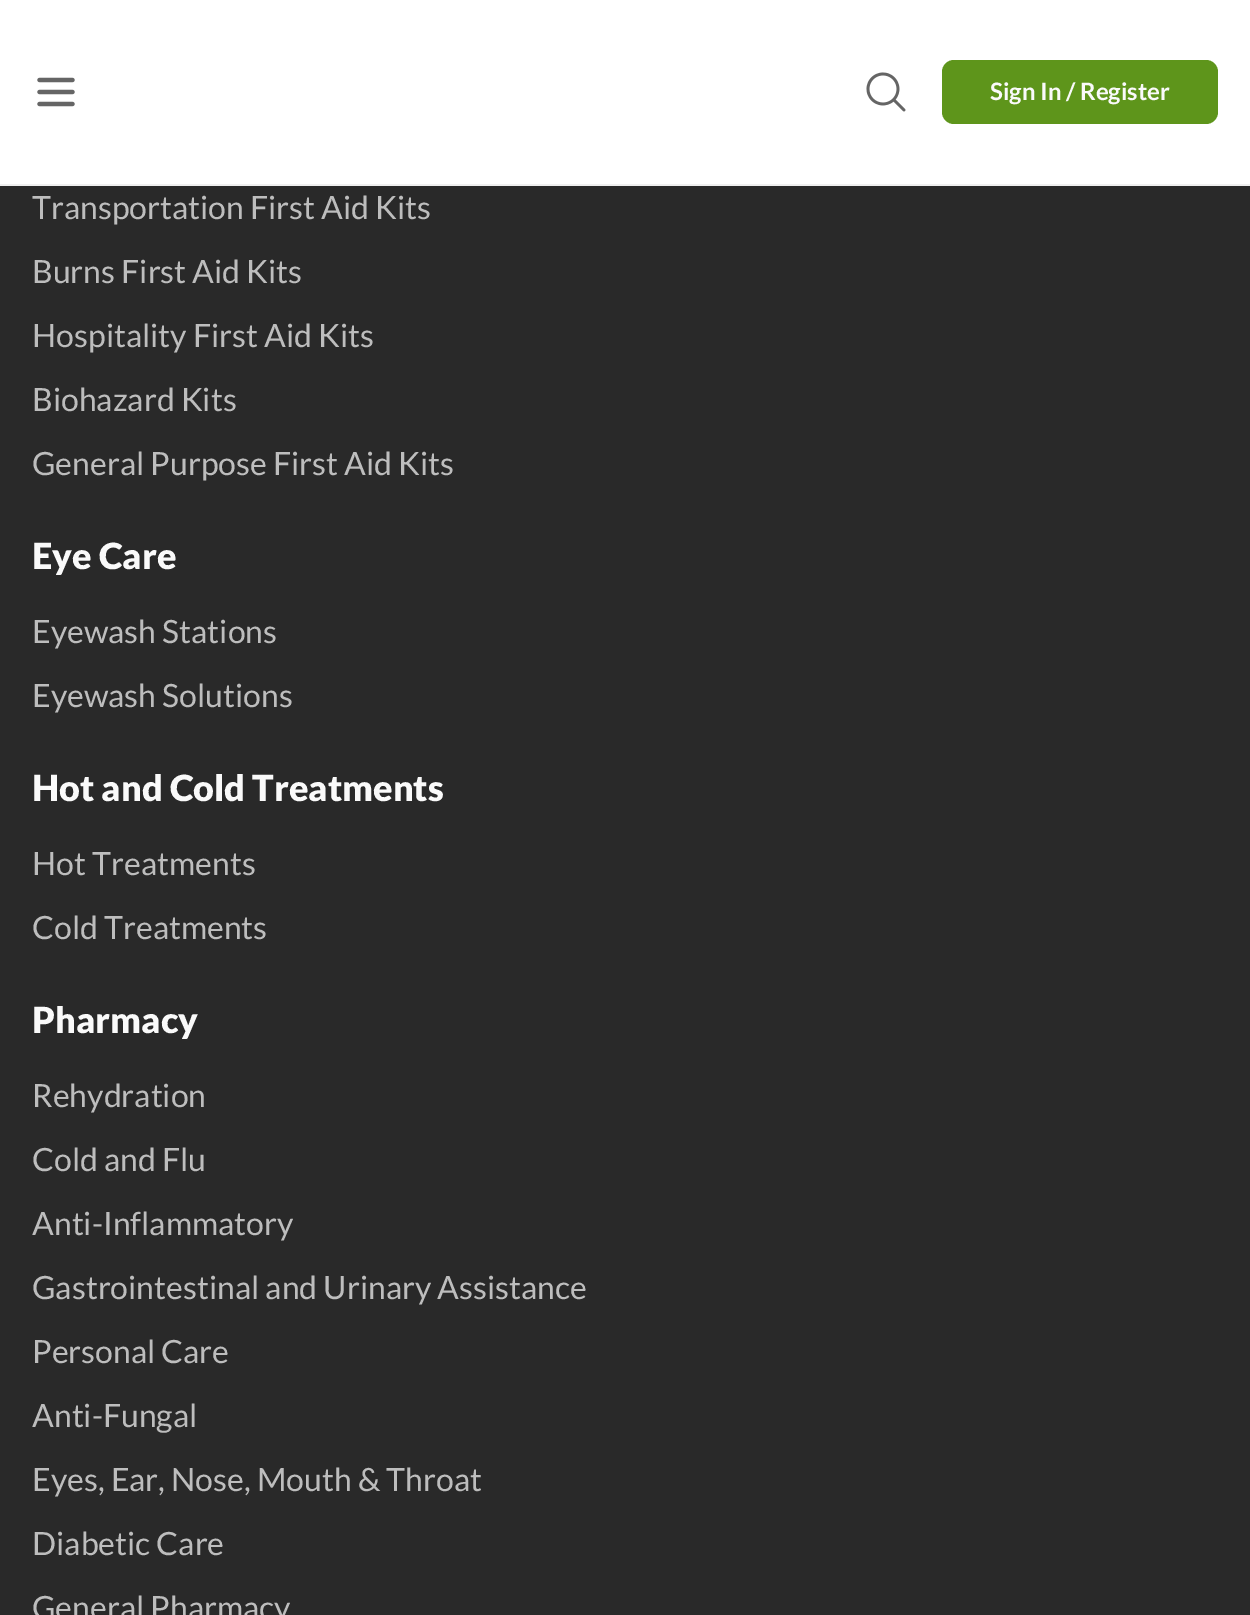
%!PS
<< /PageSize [1250 1615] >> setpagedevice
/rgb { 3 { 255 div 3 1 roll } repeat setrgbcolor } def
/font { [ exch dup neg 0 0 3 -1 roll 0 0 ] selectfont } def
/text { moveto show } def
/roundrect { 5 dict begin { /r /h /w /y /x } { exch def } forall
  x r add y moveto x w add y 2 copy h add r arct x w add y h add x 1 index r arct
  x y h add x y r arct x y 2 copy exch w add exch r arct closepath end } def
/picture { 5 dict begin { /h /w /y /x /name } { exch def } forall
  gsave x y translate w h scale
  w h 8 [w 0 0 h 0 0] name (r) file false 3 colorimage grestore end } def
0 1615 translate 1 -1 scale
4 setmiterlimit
41 41 41 rgb
0 0 1250 1615 rectfill
255 255 255 rgb
0 0 1250 184 rectfill
239 239 239 rgb
0 184 1250 2 rectfill
(img_01.rgb) 37 77 38 30 picture
(img_02.rgb) 866 72 40 40 picture
94 149 27 rgb
942 60 276 64 12 roundrect fill
/Lato-Bold 24 font
250 250 250 rgb
(Sign In / Register) 990 100 text
/Lato-Regular 32 font
189 189 189 rgb
(Transportation First Aid Kits) 32 219 text
(Burns First Aid Kits) 32 283 text
(Hospitality First Aid Kits) 32 347 text
(Biohazard Kits) 32 411 text
(General Purpose First Aid Kits) 32 475 text
/Lato-Black 36 font
250 250 250 rgb
(Eye Care) 32 569 text
/Lato-Regular 32 font
189 189 189 rgb
(Eyewash Stations) 32 643 text
(Eyewash Solutions) 32 707 text
/Lato-Black 36 font
250 250 250 rgb
(Hot and Cold Treatments) 32 801 text
/Lato-Regular 32 font
189 189 189 rgb
(Hot Treatments) 32 875 text
(Cold Treatments) 32 939 text
/Lato-Black 36 font
250 250 250 rgb
(Pharmacy) 32 1033 text
/Lato-Regular 32 font
189 189 189 rgb
(Rehydration) 32 1107 text
(Cold and Flu) 32 1171 text
(Anti-Inflammatory) 32 1235 text
(Gastrointestinal and Urinary Assistance) 32 1299 text
(Personal Care) 32 1363 text
(Anti-Fungal) 32 1427 text
(Eyes, Ear, Nose, Mouth & Throat) 32 1491 text
(Diabetic Care) 32 1555 text
(General Pharmacy) 32 1619 text
showpage
